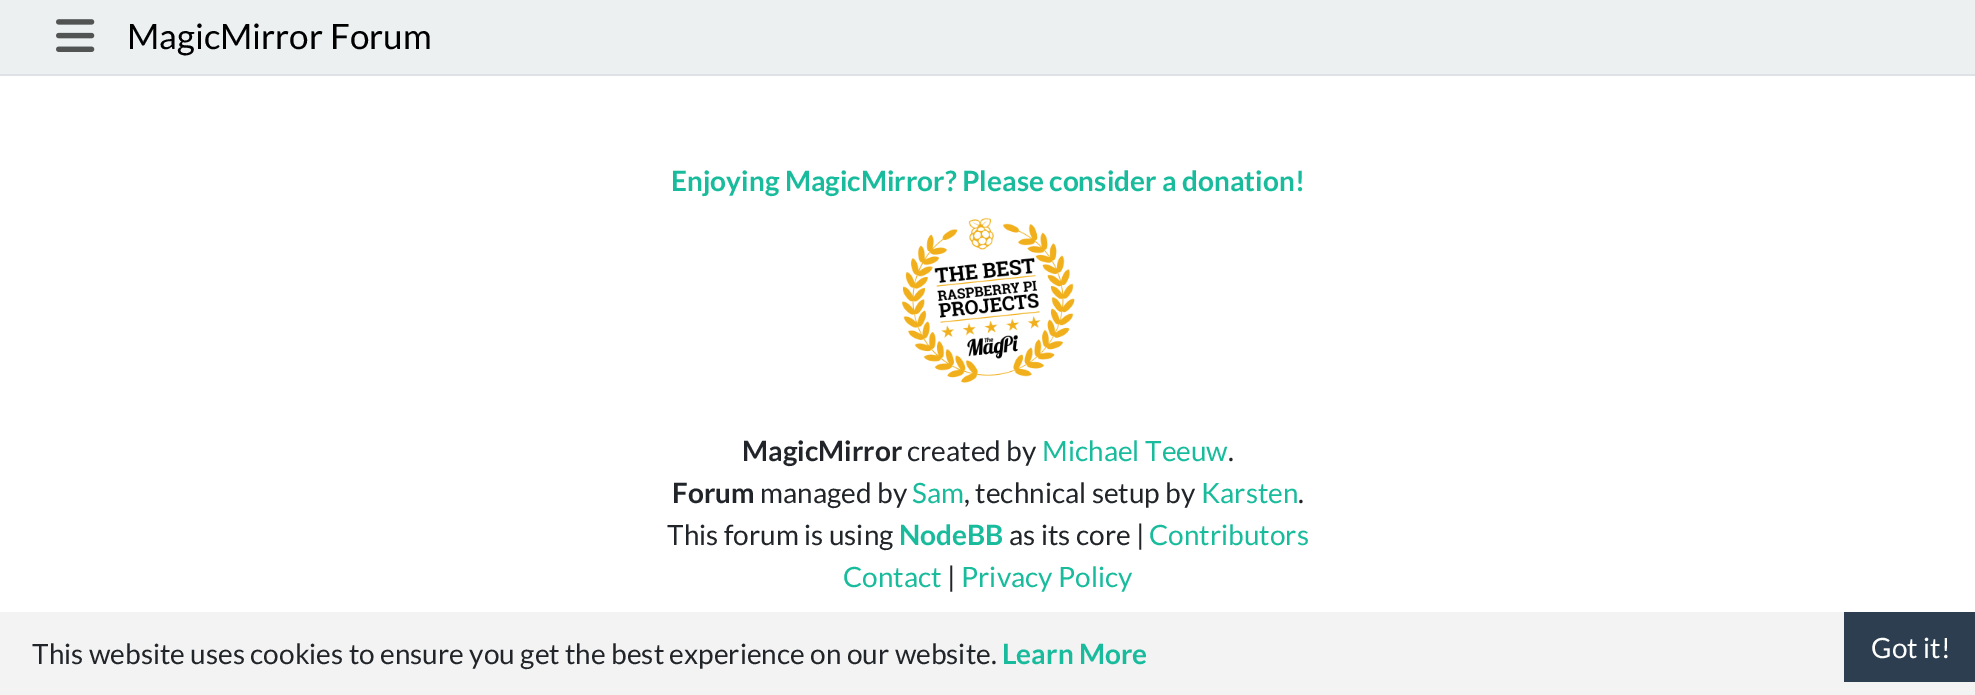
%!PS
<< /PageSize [1975 695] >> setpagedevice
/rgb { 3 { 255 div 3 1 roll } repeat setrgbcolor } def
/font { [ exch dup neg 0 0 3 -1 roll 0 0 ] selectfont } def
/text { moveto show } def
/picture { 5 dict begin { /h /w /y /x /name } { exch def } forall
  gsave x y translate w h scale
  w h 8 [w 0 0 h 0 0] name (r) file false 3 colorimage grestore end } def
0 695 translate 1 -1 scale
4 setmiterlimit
255 255 255 rgb
0 0 1975 695 rectfill
236 240 241 rgb
0 0 1975 74 rectfill
222 226 230 rgb
0 74 1975 2 rectfill
(img_01.rgb) 56 19 39 33 picture
(img_02.rgb) 902 217 173 166 picture
243 243 243 rgb
0 612 1975 83 rectfill
44 62 80 rgb
1844 612 131 70 rectfill
/Lato-Regular 35 font
0 0 0 rgb
(MagicMirror Forum) 127 49 text
/Lato-Bold 28 font
24 188 156 rgb
(Enjoying MagicMirror? Please consider a donation!) 671 191 text
33 37 41 rgb
(MagicMirror) 742 461 text
/Lato-Regular 28 font
(created by) 907 461 text
24 188 156 rgb
(Michael Teeuw) 1042 461 text
33 37 41 rgb
(.) 1228 461 text
/Lato-Bold 28 font
(Forum) 672 503 text
/Lato-Regular 28 font
(managed by) 760 503 text
24 188 156 rgb
(Sam) 912 503 text
33 37 41 rgb
(, technical setup by) 964 503 text
24 188 156 rgb
(Karsten) 1201 503 text
33 37 41 rgb
(.) 1298 503 text
(This forum is using) 667 545 text
/Lato-Bold 28 font
24 188 156 rgb
(NodeBB) 899 545 text
/Lato-Regular 28 font
33 37 41 rgb
(as its core |) 1009 545 text
24 188 156 rgb
(Contributors) 1149 545 text
(Contact) 843 587 text
33 37 41 rgb
(|) 947 587 text
24 188 156 rgb
(Privacy Policy) 961 587 text
33 37 41 rgb
(This website uses cookies to ensure you get the best experience on our website.) 32 664 text
/Lato-Bold 28 font
24 188 156 rgb
(Learn More) 1002 664 text
/Lato-Regular 28 font
255 255 255 rgb
(Got it!) 1871 658 text
showpage
